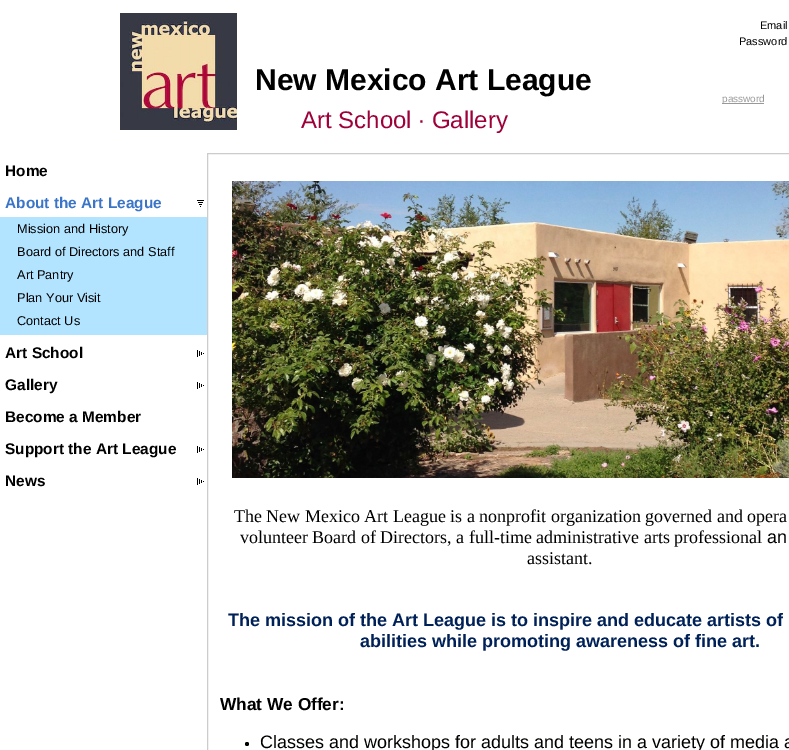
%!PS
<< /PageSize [789 750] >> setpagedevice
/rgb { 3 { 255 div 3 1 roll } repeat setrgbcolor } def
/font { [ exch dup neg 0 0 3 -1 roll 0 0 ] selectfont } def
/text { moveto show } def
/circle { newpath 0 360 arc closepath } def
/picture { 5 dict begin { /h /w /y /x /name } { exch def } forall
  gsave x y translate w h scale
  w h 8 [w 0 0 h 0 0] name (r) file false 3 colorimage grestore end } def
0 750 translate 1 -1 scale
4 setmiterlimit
255 255 255 rgb
0 0 789 750 rectfill
(img_01.rgb) 120 13 117 117 picture
153 153 153 rgb
722 103 42 1 rectfill
(img_02.rgb) 197 200 7 7 picture
179 228 255 rgb
0 217 207 118 rectfill
(img_03.rgb) 197 350 7 7 picture
(img_03.rgb) 197 382 7 7 picture
(img_03.rgb) 197 446 7 7 picture
(img_03.rgb) 197 478 7 7 picture
204 204 204 rgb
207.5 153.5 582 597 rectstroke
(img_04.rgb) 232 181 557 297 picture
0 0 0 rgb
247 744 2 circle fill
/LiberationSans-Bold 30 font
(New Mexico Art League) 255 90 text
/LiberationSans-Regular 24 font
158 0 57 rgb
(Art School ∙ Gallery) 301 128 text
/LiberationSans-Regular 11 font
0 0 0 rgb
(Email) 760 29 text
(Password) 739 45 text
/LiberationSans-Regular 10 font
153 153 153 rgb
(password) 722 102 text
/LiberationSans-Bold 15.4 font
0 0 0 rgb
(Home) 5 176 text
58 117 200 rgb
(About the Art League) 5 208 text
/LiberationSans-Regular 12.75 font
0 0 0 rgb
(Mission and History) 17 233 text
(Board of Directors and Staff) 17 256 text
(Art Pantry) 17 279 text
(Plan Your Visit) 17 302 text
(Contact Us) 17 325 text
/LiberationSans-Bold 15.4 font
(Art School) 5 358 text
(Gallery) 5 390 text
(Become a Member) 5 422 text
(Support the Art League) 5 454 text
(News) 5 486 text
/LiberationSerif-Regular 18 font
(The New Mexico Art League is a nonprofit organization governed and opera) 234 522 text
(volunteer Board of Directors, a full-time administrative arts professional) 240 543 text
/LiberationSans-Regular 18 font
(an) 767 543 text
/LiberationSerif-Regular 18 font
(assistant.) 527 564 text
/LiberationSans-Bold 18 font
0 33 87 rgb
(The mission of the Art League is to inspire and educate artists of) 228 626 text
(abilities while promoting awareness of fine art.) 360 647 text
/LiberationSans-Bold 17.25 font
0 0 0 rgb
(What We Offer:) 220 710 text
/LiberationSans-Regular 18 font
(Classes and workshops for adults and teens in a variety of media a) 260 748 text
showpage
